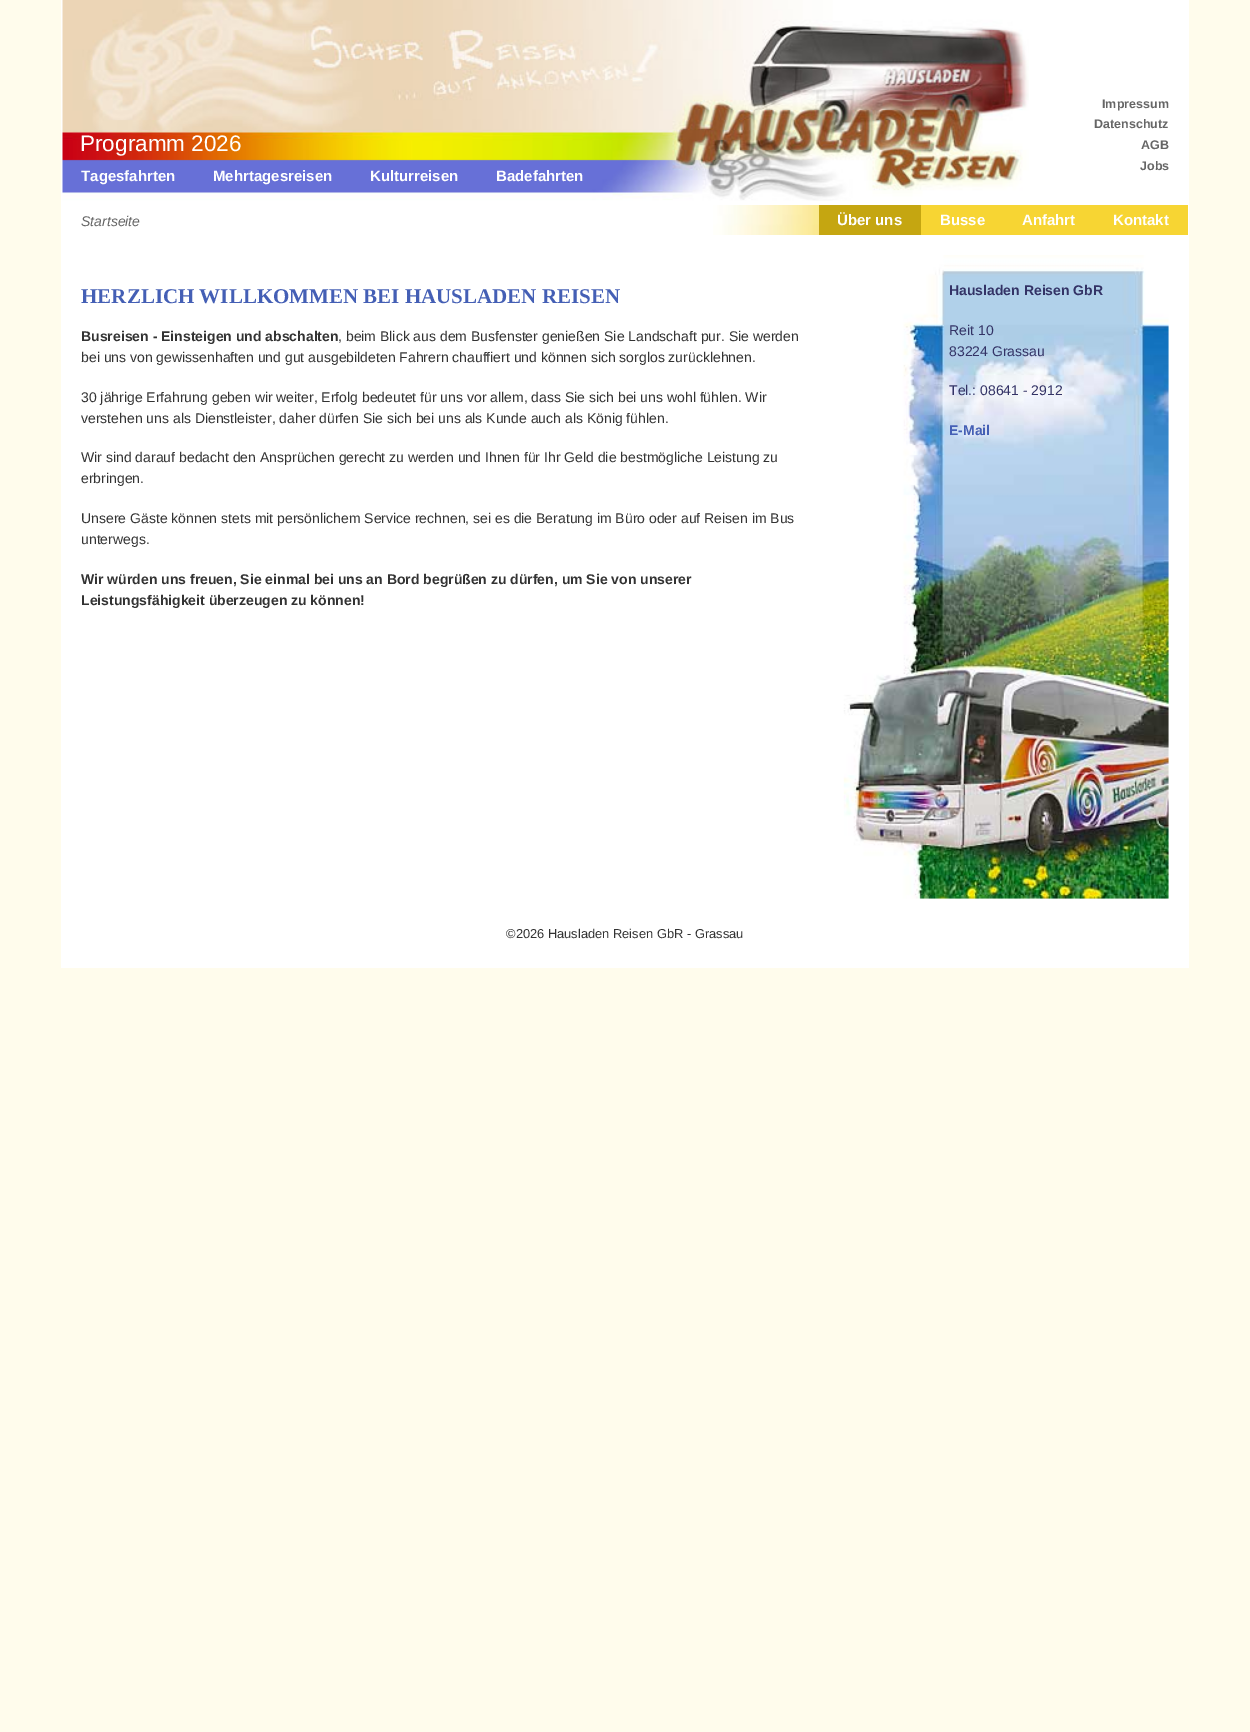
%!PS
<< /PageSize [1250 1732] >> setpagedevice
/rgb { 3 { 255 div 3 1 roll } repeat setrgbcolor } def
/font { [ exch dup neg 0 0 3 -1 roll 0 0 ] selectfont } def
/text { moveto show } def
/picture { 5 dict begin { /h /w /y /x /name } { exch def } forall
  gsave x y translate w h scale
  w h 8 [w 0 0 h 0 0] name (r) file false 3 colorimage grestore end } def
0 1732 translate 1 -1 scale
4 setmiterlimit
255 252 236 rgb
0 0 1250 1732 rectfill
255 255 255 rgb
61 0 1128 968 rectfill
(img_01.rgb) 62 0 967 201 picture
247 213 51 rgb
921 205 267 30 rectfill
(img_02.rgb) 713 205 106 30 picture
197 166 17 rgb
819 205 102 30 rectfill
(img_03.rgb) 843 255 326 644 picture
/LiberationSans-Regular 22.5 font
255 255 255 rgb
(Programm 2026) 80 151 text
/LiberationSans-Bold 12.5 font
102 102 102 rgb
(Impressum) 1102 108 text
(Datenschutz) 1094 128 text
(AGB) 1141 149 text
(Jobs) 1140 170 text
/LiberationSans-Bold 15 font
255 255 255 rgb
(Tagesfahrten) 81 181 text
(Mehrtagesreisen) 213 181 text
(Kulturreisen) 370 181 text
(Badefahrten) 496 181 text
/LiberationSans-Italic 14 font
102 102 102 rgb
(Startseite) 81 226 text
/LiberationSans-Bold 15 font
255 255 255 rgb
(Über uns) 837 225 text
(Busse) 940 225 text
(Anfahrt) 1022 225 text
(Kontakt) 1113 225 text
/LiberationSerif-Bold 21 font
68 95 181 rgb
(HERZLICH WILLKOMMEN BEI HAUSLADEN REISEN) 81 303 text
/LiberationSans-Bold 14 font
51 51 51 rgb
(Busreisen - Einsteigen und abschalten) 81 341 text
/LiberationSans-Regular 14 font
(, beim Blick aus dem Busfenster genießen Sie Landschaft pur. Sie werden) 338 341 text
(bei uns von gewissenhaften und gut ausgebildeten Fahrern chauffiert und können sich sorglos zurücklehnen.) 81 362 text
(30 jährige Erfahrung geben wir weiter, Erfolg bedeutet für uns vor allem, dass Sie sich bei uns wohl fühlen. Wir) 81 402 text
(verstehen uns als Dienstleister, daher dürfen Sie sich bei uns als Kunde auch als König fühlen.) 81 423 text
(Wir sind darauf bedacht den Ansprüchen gerecht zu werden und Ihnen für Ihr Geld die bestmögliche Leistung zu) 81 462 text
(erbringen.) 81 483 text
(Unsere Gäste können stets mit persönlichem Service rechnen, sei es die Beratung im Büro oder auf Reisen im Bus) 81 523 text
(unterwegs.) 81 544 text
/LiberationSans-Bold 14 font
(Wir würden uns freuen, Sie einmal bei uns an Bord begrüßen zu dürfen, um Sie von unserer) 81 584 text
(Leistungsfähigkeit überzeugen zu können!) 81 605 text
51 51 102 rgb
(Hausladen Reisen GbR) 949 295 text
/LiberationSans-Regular 14 font
(Reit 10) 949 335 text
(83224 Grassau) 949 356 text
(Tel.: 08641 - 2912) 949 395 text
/LiberationSans-Bold 14 font
68 95 181 rgb
(E-Mail) 949 435 text
/LiberationSans-Regular 12.9 font
51 51 51 rgb
(©2026 Hausladen Reisen GbR - Grassau) 506 938 text
showpage
